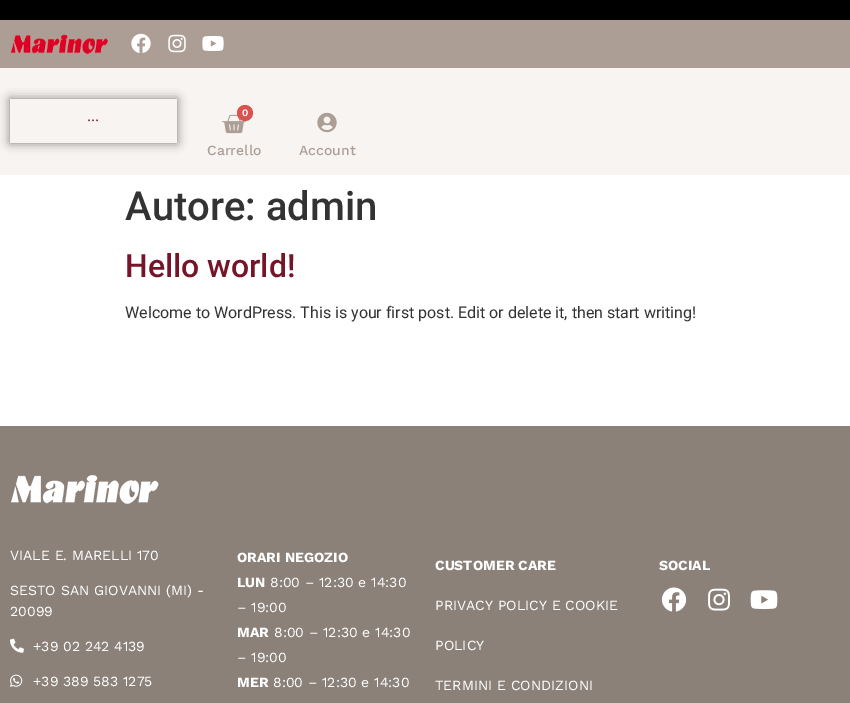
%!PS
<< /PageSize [850 703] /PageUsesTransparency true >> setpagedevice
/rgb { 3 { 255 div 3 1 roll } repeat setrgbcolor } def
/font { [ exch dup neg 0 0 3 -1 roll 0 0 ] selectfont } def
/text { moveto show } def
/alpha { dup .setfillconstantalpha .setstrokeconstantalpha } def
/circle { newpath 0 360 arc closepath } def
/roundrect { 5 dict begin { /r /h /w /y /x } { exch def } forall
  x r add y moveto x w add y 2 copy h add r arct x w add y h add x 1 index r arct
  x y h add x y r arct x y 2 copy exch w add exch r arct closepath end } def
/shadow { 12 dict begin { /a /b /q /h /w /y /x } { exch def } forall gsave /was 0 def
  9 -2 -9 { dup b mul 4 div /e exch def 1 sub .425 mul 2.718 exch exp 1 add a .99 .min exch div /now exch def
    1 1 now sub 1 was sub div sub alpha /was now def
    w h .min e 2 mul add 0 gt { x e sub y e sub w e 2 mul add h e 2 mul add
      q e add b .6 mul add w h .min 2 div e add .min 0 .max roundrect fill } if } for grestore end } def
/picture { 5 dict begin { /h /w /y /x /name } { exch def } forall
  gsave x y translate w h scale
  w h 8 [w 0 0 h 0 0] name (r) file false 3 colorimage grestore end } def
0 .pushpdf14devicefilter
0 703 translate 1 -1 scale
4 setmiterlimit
255 255 255 rgb
0 0 850 703 rectfill
0 0 0 rgb
0 0 850 20 rectfill
172 158 149 rgb
0 20 850 48 rectfill
(img_01.rgb) 10 34 99 21 picture
(img_02.rgb) 131 33 20 20 picture
(img_03.rgb) 168 34 18 19 picture
(img_04.rgb) 202 36 22 15 picture
248 244 242 rgb
0 68 850 107 rectfill
gsave
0 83 moveto 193 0 rlineto 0 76 rlineto -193 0 rlineto closepath 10 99 moveto 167 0 rlineto 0 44 rlineto -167 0 rlineto closepath eoclip newpath
0 0 0 rgb
10 99 167 44 0 5 0.5 shadow
grestore
(img_05.rgb) 222 114 24 20 picture
217 83 79 rgb
245 113 8 circle fill
(img_06.rgb) 317 112 20 21 picture
140 129 121 rgb
0 426 850 277 rectfill
(img_07.rgb) 11 475 148 29 picture
(img_08.rgb) 10 638 14 15 picture
(img_09.rgb) 10 674 13 13 picture
(img_10.rgb) 661 587 26 25 picture
(img_11.rgb) 708 588 22 23 picture
(img_12.rgb) 750 590 28 19 picture
/Roboto-Regular 16 font
118 21 39 rgb
(···) 87 126 text
/WorkSans-SemiBold 10 font
255 255 255 rgb
(0) 242 116 text
/WorkSans-Medium 14 font
172 158 149 rgb
(Carrello) 207 155 text
(Account) 299 155 text
/Roboto-Medium 40 font
51 51 51 rgb
(Autore: admin) 125 220 text
/Roboto-Medium 32 font
118 21 39 rgb
(Hello world!) 125 277 text
/Roboto-Regular 16 font
51 51 51 rgb
(Welcome to WordPress. This is your first post. Edit or delete it, then start writing!) 125 318 text
/WorkSans-Regular 14 font
255 255 255 rgb
(VIALE E. MARELLI 170) 10 560 text
(SESTO SAN GIOVANNI \(MI\) -) 10 595 text
(20099) 10 616 text
(+39 02 242 4139) 33 651 text
(+39 389 583 1275) 33 686 text
/WorkSans-Bold 14 font
(ORARI NEGOZIO) 237 562 text
(LUN) 237 587 text
/WorkSans-Regular 14 font
(8:00 – 12:30 e 14:30) 270 587 text
(– 19:00) 237 612 text
/WorkSans-Bold 14 font
(MAR) 237 637 text
/WorkSans-Regular 14 font
(8:00 – 12:30 e 14:30) 274 637 text
(– 19:00) 237 662 text
/WorkSans-Bold 14 font
(MER) 237 687 text
/WorkSans-Regular 14 font
(8:00 – 12:30 e 14:30) 273 687 text
/WorkSans-Bold 14 font
(CUSTOMER CARE) 435 570 text
/WorkSans-Regular 14 font
(PRIVACY POLICY E COOKIE) 435 610 text
(POLICY) 435 650 text
(TERMINI E CONDIZIONI) 435 690 text
/WorkSans-Bold 14 font
(SOCIAL) 659 570 text
.poppdf14devicefilter showpage
